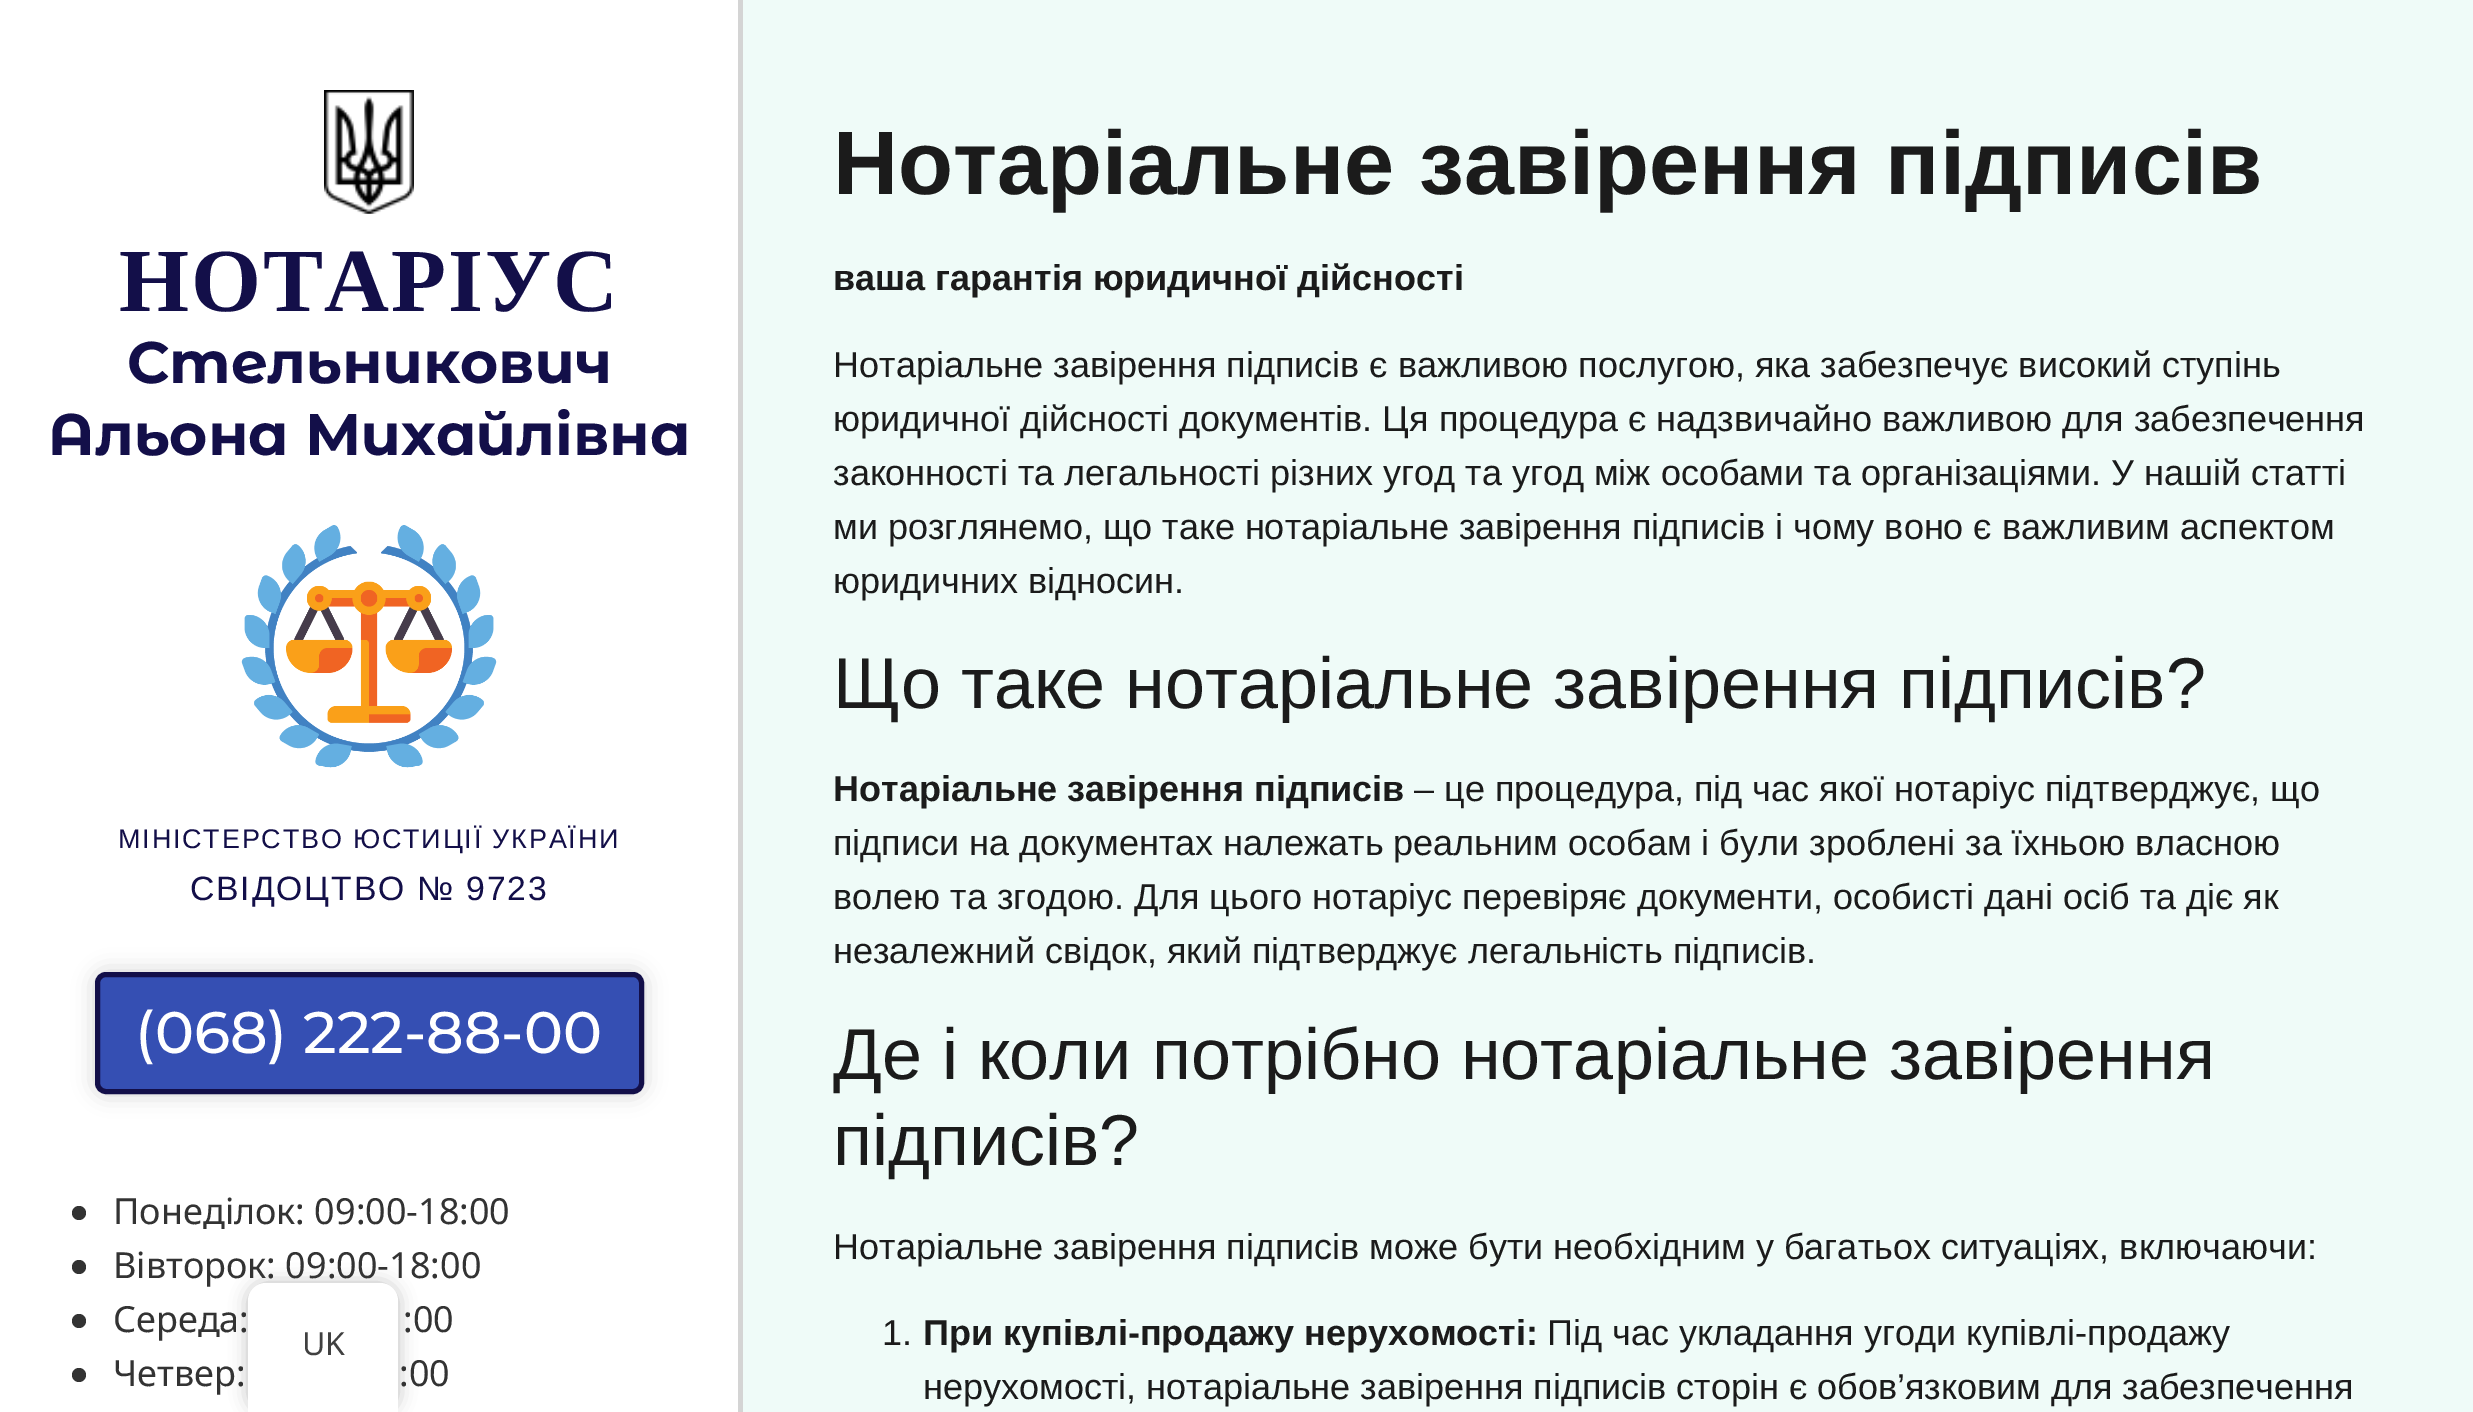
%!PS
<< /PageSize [2473 1412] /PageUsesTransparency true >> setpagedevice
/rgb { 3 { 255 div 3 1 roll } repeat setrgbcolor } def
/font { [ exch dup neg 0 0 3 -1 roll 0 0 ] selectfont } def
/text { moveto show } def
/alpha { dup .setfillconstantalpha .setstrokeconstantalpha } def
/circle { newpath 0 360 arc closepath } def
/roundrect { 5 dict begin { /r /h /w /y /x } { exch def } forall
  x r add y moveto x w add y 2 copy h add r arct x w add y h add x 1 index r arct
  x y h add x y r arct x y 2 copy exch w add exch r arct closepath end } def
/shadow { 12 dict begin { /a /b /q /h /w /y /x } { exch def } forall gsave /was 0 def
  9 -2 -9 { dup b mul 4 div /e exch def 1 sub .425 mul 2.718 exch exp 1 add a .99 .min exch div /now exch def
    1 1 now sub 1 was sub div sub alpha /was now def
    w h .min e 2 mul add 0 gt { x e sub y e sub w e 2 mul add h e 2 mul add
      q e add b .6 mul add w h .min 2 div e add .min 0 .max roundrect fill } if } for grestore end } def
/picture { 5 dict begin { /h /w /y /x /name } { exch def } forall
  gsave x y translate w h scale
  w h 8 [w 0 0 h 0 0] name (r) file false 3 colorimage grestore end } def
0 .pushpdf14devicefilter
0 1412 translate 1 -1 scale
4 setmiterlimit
255 255 255 rgb
0 0 2473 1412 rectfill
212 212 212 rgb
738 0 5 1412 rectfill
(img_01.rgb) 324 90 90 124 picture
(img_02.rgb) 241 525 256 243 picture
0 0 0 rgb
95 972 549 122 11 11 0.18 shadow
53 79 179 rgb
97.5 974.5 544 117 8.5 roundrect gsave fill grestore
19 15 73 rgb
5 setlinewidth
stroke
51 51 51 rgb
79 1213 7 circle fill
79 1267 7 circle fill
79 1321 7 circle fill
79 1375 7 circle fill
239 251 248 rgb
743 0 1730 1412 rectfill
0 0 0 rgb
248 1283 150 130 18 9 0.25 shadow
/LiberationSerif-Bold 90 font
19 15 73 rgb
119 311 moveto 1.8 0 (НОТАРІУС) ashow
/MontserratAlternates-Bold 58.5 font
(Стельникович) 127 383 text
(Альона Михайлівна) 48 455 text
/LiberationSans-Regular 27 font
118 848 moveto 1.8 0 (МІНІСТЕРСТВО ЮСТИЦІЇ УКРАЇНИ) ashow
/LiberationSans-Regular 33.75 font
190 900 moveto 1.8 0 (СВІДОЦТВО № 9723) ashow
/Montserrat-Medium 58.5 font
255 255 255 rgb
(\(068\) 222-88-00) 135 1053 text
/NotoSans-Regular 36 font
51 51 51 rgb
(Понеділок: 09:00-18:00) 113 1224 text
(Вівторок: 09:00-18:00) 113 1278 text
(Середа:) 113 1332 text
(:00) 403 1332 text
(Четвер:) 113 1386 text
(:00) 399 1386 text
/LiberationSans-Bold 90 font
27 27 27 rgb
(Нотаріальне завірення підписів) 833 194 text
/LiberationSans-Bold 36 font
(ваша гарантія юридичної дійсності) 833 290 text
/LiberationSans-Regular 36 font
(Нотаріальне завірення підписів є важливою послугою, яка забезпечує високий ступінь) 833 377 text
(юридичної дійсності документів. Ця процедура є надзвичайно важливою для забезпечення) 833 431 text
(законності та легальності різних угод та угод між особами та організаціями. У нашій статті) 833 485 text
(ми розглянемо, що таке нотаріальне завірення підписів і чому воно є важливим аспектом) 833 539 text
(юридичних відносин.) 833 593 text
/LiberationSans-Regular 72 font
(Що таке нотаріальне завірення підписів?) 833 708 text
/LiberationSans-Bold 36 font
(Нотаріальне завірення підписів) 833 801 text
/LiberationSans-Regular 36 font
(– це процедура, під час якої нотаріус підтверджує, що) 1414 801 text
(підписи на документах належать реальним особам і були зроблені за їхньою власною) 833 855 text
(волею та згодою. Для цього нотаріус перевіряє документи, особисті дані осіб та діє як) 833 909 text
(незалежний свідок, який підтверджує легальність підписів.) 833 963 text
/LiberationSans-Regular 72 font
(Де і коли потрібно нотаріальне завірення) 833 1079 text
(підписів?) 833 1165 text
/LiberationSans-Regular 36 font
(Нотаріальне завірення підписів може бути необхідним у багатьох ситуаціях, включаючи:) 833 1259 text
(1.) 882 1345 text
/LiberationSans-Bold 36 font
(При купівлі-продажу нерухомості:) 923 1345 text
/LiberationSans-Regular 36 font
(Під час укладання угоди купівлі-продажу) 1547 1345 text
(нерухомості, нотаріальне завірення підписів сторін є обов’язковим для забезпечення) 923 1399 text
255 255 255 rgb
266 1283 moveto 114 0 rlineto 10 0 18 8 18 18 rcurveto 0 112 rlineto -150 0 rlineto 0 -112 rlineto 0 -10 8 -18 18 -18 rcurveto closepath fill
/NotoSans-Regular 32 font
64 64 64 rgb
(UK) 302 1355 text
.poppdf14devicefilter showpage
